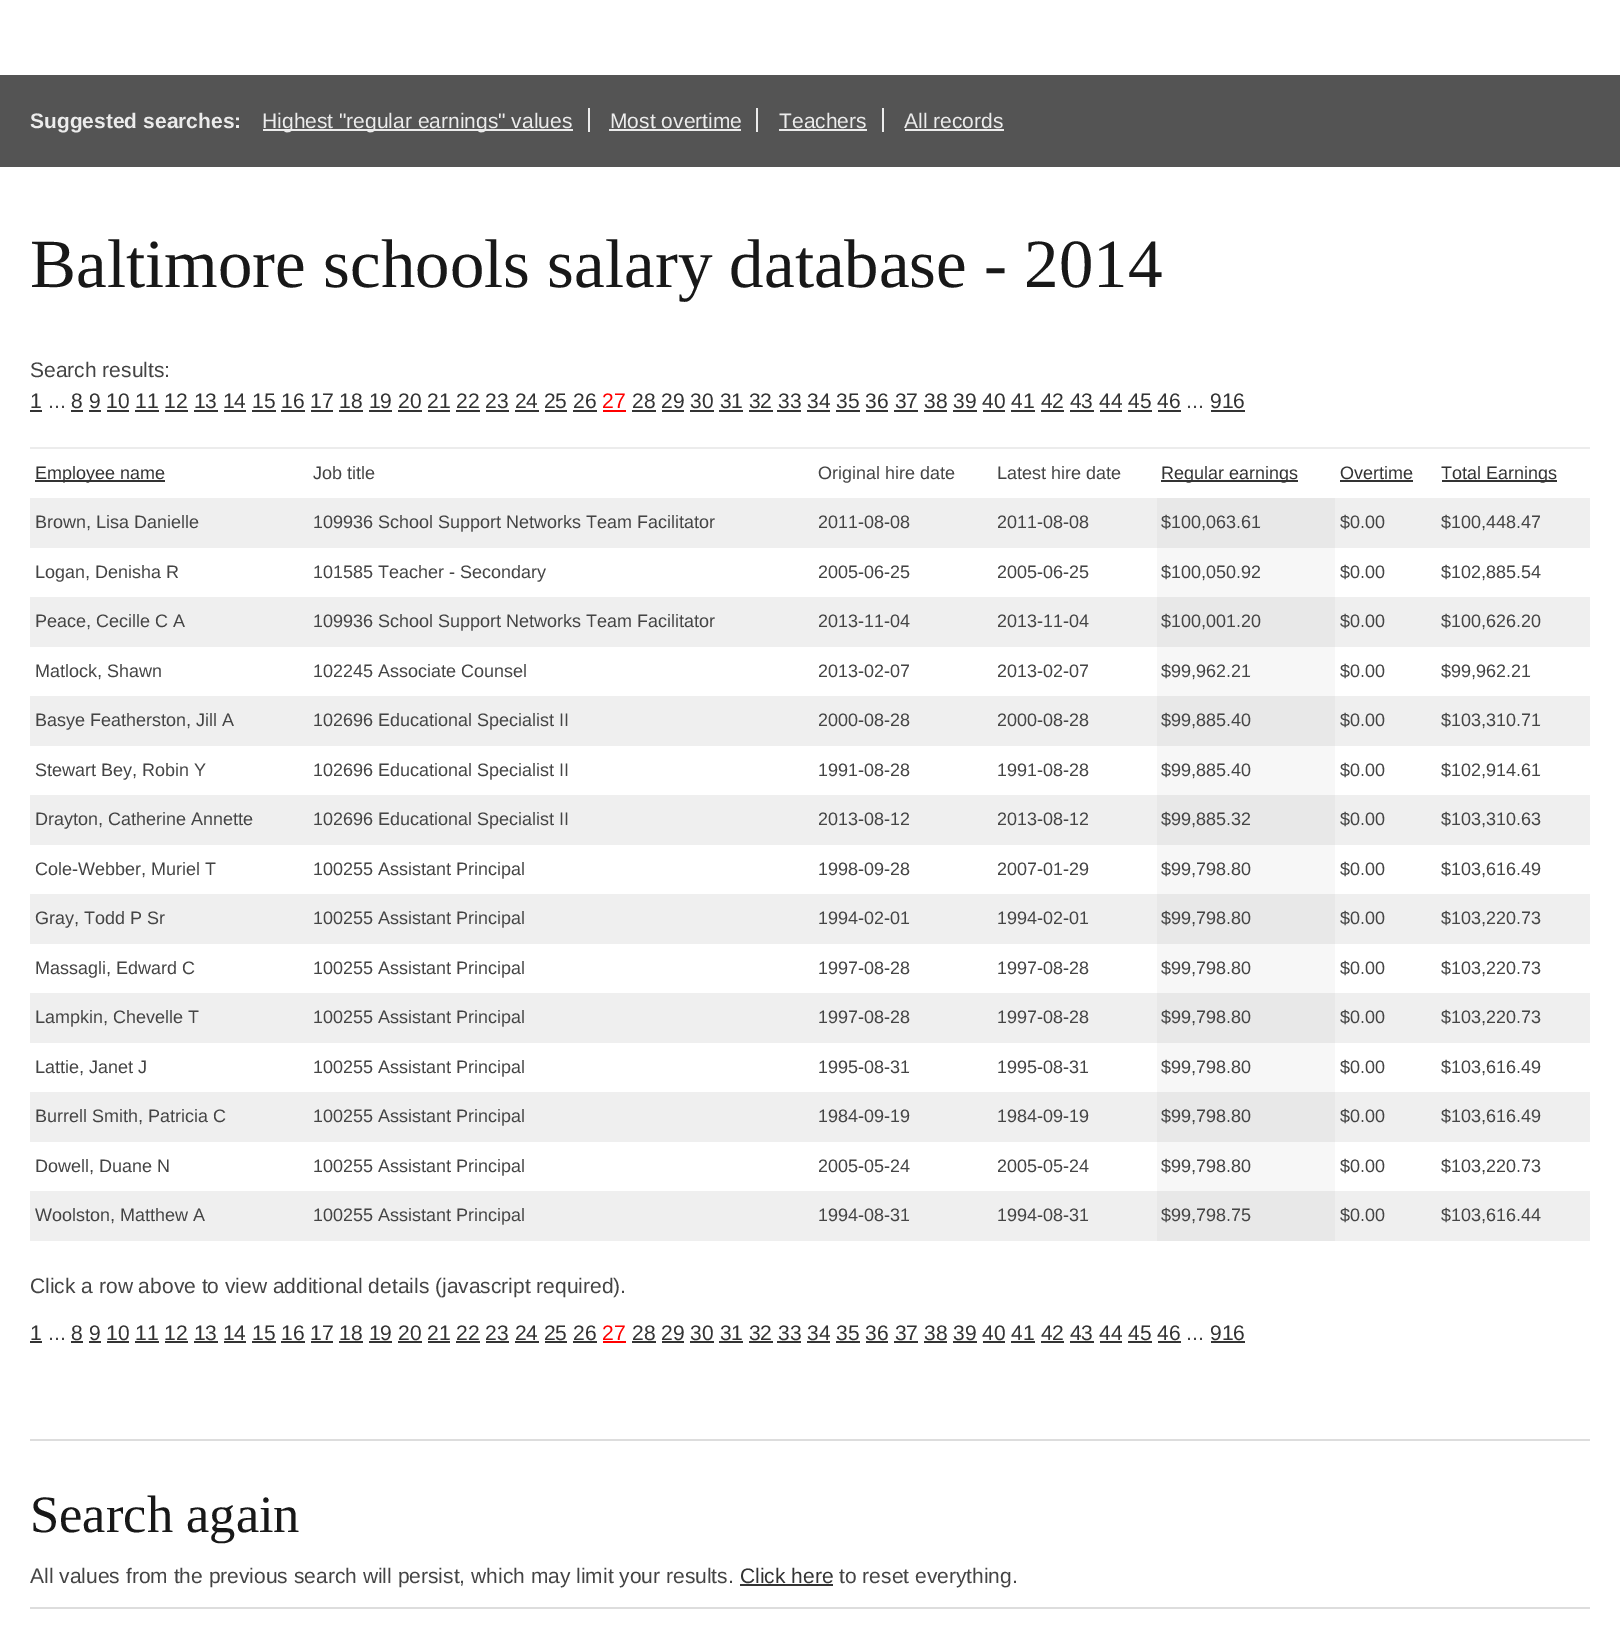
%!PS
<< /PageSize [1620 1635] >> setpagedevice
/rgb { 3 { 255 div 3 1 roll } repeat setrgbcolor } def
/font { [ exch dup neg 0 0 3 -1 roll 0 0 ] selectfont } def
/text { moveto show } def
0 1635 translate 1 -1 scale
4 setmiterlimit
255 255 255 rgb
0 0 1620 1635 rectfill
84 84 84 rgb
0 75 1620 92 rectfill
236 236 236 rgb
588 108 2 24 rectfill
263 129 310 2 rectfill
756 108 2 24 rectfill
609 129 132 2 rectfill
882 108 2 24 rectfill
779 129 88 2 rectfill
905 129 99 2 rectfill
51 51 51 rgb
30 410 12 2 rectfill
71 410 12 2 rectfill
255 0 0 rgb
603 410 23 2 rectfill
51 51 51 rgb
632 410 24 2 rectfill
1211 410 34 2 rectfill
89 410 12 2 rectfill
107 410 22 2 rectfill
135 410 24 2 rectfill
165 410 23 2 rectfill
194 410 24 2 rectfill
224 410 22 2 rectfill
252 410 24 2 rectfill
281 410 24 2 rectfill
311 410 22 2 rectfill
339 410 24 2 rectfill
369 410 23 2 rectfill
398 410 24 2 rectfill
428 410 22 2 rectfill
456 410 24 2 rectfill
486 410 23 2 rectfill
515 410 24 2 rectfill
545 410 22 2 rectfill
573 410 24 2 rectfill
662 410 22 2 rectfill
690 410 24 2 rectfill
719 410 24 2 rectfill
749 410 24 2 rectfill
777 410 24 2 rectfill
807 410 23 2 rectfill
836 410 24 2 rectfill
866 410 22 2 rectfill
894 410 24 2 rectfill
924 410 23 2 rectfill
953 410 24 2 rectfill
983 410 22 2 rectfill
1011 410 24 2 rectfill
1041 410 23 2 rectfill
1070 410 24 2 rectfill
1100 410 22 2 rectfill
1128 410 24 2 rectfill
1158 410 23 2 rectfill
236 236 236 rgb
30 447 1560 2 rectfill
51 51 51 rgb
35 480 130 2 rectfill
1161 480 137 2 rectfill
1340 480 73 2 rectfill
1442 480 115 2 rectfill
239 239 239 rgb
30 498 1560 50 rectfill
232 232 232 rgb
1157 498 178 50 rectfill
247 247 247 rgb
1157 548 178 49 rectfill
239 239 239 rgb
30 597 1560 50 rectfill
232 232 232 rgb
1157 597 178 50 rectfill
247 247 247 rgb
1157 647 178 49 rectfill
239 239 239 rgb
30 696 1560 50 rectfill
232 232 232 rgb
1157 696 178 50 rectfill
247 247 247 rgb
1157 746 178 49 rectfill
239 239 239 rgb
30 795 1560 50 rectfill
232 232 232 rgb
1157 795 178 50 rectfill
247 247 247 rgb
1157 845 178 49 rectfill
239 239 239 rgb
30 894 1560 50 rectfill
232 232 232 rgb
1157 894 178 50 rectfill
247 247 247 rgb
1157 944 178 49 rectfill
239 239 239 rgb
30 993 1560 50 rectfill
232 232 232 rgb
1157 993 178 50 rectfill
247 247 247 rgb
1157 1043 178 49 rectfill
239 239 239 rgb
30 1092 1560 50 rectfill
232 232 232 rgb
1157 1092 178 50 rectfill
247 247 247 rgb
1157 1142 178 49 rectfill
239 239 239 rgb
30 1191 1560 50 rectfill
232 232 232 rgb
1157 1191 178 50 rectfill
51 51 51 rgb
30 1341 12 2 rectfill
71 1341 12 2 rectfill
255 0 0 rgb
603 1341 23 2 rectfill
51 51 51 rgb
632 1341 24 2 rectfill
1211 1341 34 2 rectfill
89 1341 12 2 rectfill
107 1341 22 2 rectfill
135 1341 24 2 rectfill
165 1341 23 2 rectfill
194 1341 24 2 rectfill
224 1341 22 2 rectfill
252 1341 24 2 rectfill
281 1341 24 2 rectfill
311 1341 22 2 rectfill
339 1341 24 2 rectfill
369 1341 23 2 rectfill
398 1341 24 2 rectfill
428 1341 22 2 rectfill
456 1341 24 2 rectfill
486 1341 23 2 rectfill
515 1341 24 2 rectfill
545 1341 22 2 rectfill
573 1341 24 2 rectfill
662 1341 22 2 rectfill
690 1341 24 2 rectfill
719 1341 24 2 rectfill
749 1341 24 2 rectfill
777 1341 24 2 rectfill
807 1341 23 2 rectfill
836 1341 24 2 rectfill
866 1341 22 2 rectfill
894 1341 24 2 rectfill
924 1341 23 2 rectfill
953 1341 24 2 rectfill
983 1341 22 2 rectfill
1011 1341 24 2 rectfill
1041 1341 23 2 rectfill
1070 1341 24 2 rectfill
1100 1341 22 2 rectfill
1128 1341 24 2 rectfill
1158 1341 23 2 rectfill
221 221 221 rgb
30 1439 1560 2 rectfill
51 51 51 rgb
740 1584 93 2 rectfill
221 221 221 rgb
30 1607 1560 2 rectfill
/LiberationSans-Bold 21 font
236 236 236 rgb
(Suggested searches:) 30 128 text
/LiberationSans-Regular 21 font
(Highest "regular earnings" values) 262 128 text
(Most overtime) 610 128 text
(Teachers) 779 128 text
(All records) 904 128 text
/LiberationSerif-Regular 69 font
24 24 24 rgb
(Baltimore schools salary database - 2014) 30 287 text
/LiberationSans-Regular 21 font
68 68 68 rgb
(Search results:) 30 377 text
51 51 51 rgb
(1) 30 408 text
68 68 68 rgb
(...) 48 408 text
51 51 51 rgb
(8 9 10 11 12 13 14 15 16 17 18 19 20 21 22 23 24 25 26) 71 408 text
255 0 0 rgb
(27) 602 408 text
51 51 51 rgb
(28 29 30 31 32 33 34 35 36 37 38 39 40 41 42 43 44 45 46) 632 408 text
68 68 68 rgb
(...) 1186 408 text
51 51 51 rgb
(916) 1210 408 text
/LiberationSans-Regular 18 font
(Employee name) 35 479 text
68 68 68 rgb
(Job title) 313 479 text
(Original hire date) 818 479 text
(Latest hire date) 997 479 text
51 51 51 rgb
(Regular earnings) 1161 479 text
(Overtime) 1340 479 text
(Total Earnings) 1441 479 text
68 68 68 rgb
(Brown, Lisa Danielle) 35 528 text
(109936 School Support Networks Team Facilitator) 313 528 text
(2011-08-08) 818 528 text
(2011-08-08) 997 528 text
($100,063.61) 1161 528 text
($0.00) 1340 528 text
($100,448.47) 1441 528 text
(Logan, Denisha R) 35 578 text
(101585 Teacher - Secondary) 313 578 text
(2005-06-25) 818 578 text
(2005-06-25) 997 578 text
($100,050.92) 1161 578 text
($0.00) 1340 578 text
($102,885.54) 1441 578 text
(Peace, Cecille C A) 35 627 text
(109936 School Support Networks Team Facilitator) 313 627 text
(2013-11-04) 818 627 text
(2013-11-04) 997 627 text
($100,001.20) 1161 627 text
($0.00) 1340 627 text
($100,626.20) 1441 627 text
(Matlock, Shawn) 35 677 text
(102245 Associate Counsel) 313 677 text
(2013-02-07) 818 677 text
(2013-02-07) 997 677 text
($99,962.21) 1161 677 text
($0.00) 1340 677 text
($99,962.21) 1441 677 text
(Basye Featherston, Jill A) 35 726 text
(102696 Educational Specialist II) 313 726 text
(2000-08-28) 818 726 text
(2000-08-28) 997 726 text
($99,885.40) 1161 726 text
($0.00) 1340 726 text
($103,310.71) 1441 726 text
(Stewart Bey, Robin Y) 35 776 text
(102696 Educational Specialist II) 313 776 text
(1991-08-28) 818 776 text
(1991-08-28) 997 776 text
($99,885.40) 1161 776 text
($0.00) 1340 776 text
($102,914.61) 1441 776 text
(Drayton, Catherine Annette) 35 825 text
(102696 Educational Specialist II) 313 825 text
(2013-08-12) 818 825 text
(2013-08-12) 997 825 text
($99,885.32) 1161 825 text
($0.00) 1340 825 text
($103,310.63) 1441 825 text
(Cole-Webber, Muriel T) 35 875 text
(100255 Assistant Principal) 313 875 text
(1998-09-28) 818 875 text
(2007-01-29) 997 875 text
($99,798.80) 1161 875 text
($0.00) 1340 875 text
($103,616.49) 1441 875 text
(Gray, Todd P Sr) 35 924 text
(100255 Assistant Principal) 313 924 text
(1994-02-01) 818 924 text
(1994-02-01) 997 924 text
($99,798.80) 1161 924 text
($0.00) 1340 924 text
($103,220.73) 1441 924 text
(Massagli, Edward C) 35 974 text
(100255 Assistant Principal) 313 974 text
(1997-08-28) 818 974 text
(1997-08-28) 997 974 text
($99,798.80) 1161 974 text
($0.00) 1340 974 text
($103,220.73) 1441 974 text
(Lampkin, Chevelle T) 35 1023 text
(100255 Assistant Principal) 313 1023 text
(1997-08-28) 818 1023 text
(1997-08-28) 997 1023 text
($99,798.80) 1161 1023 text
($0.00) 1340 1023 text
($103,220.73) 1441 1023 text
(Lattie, Janet J) 35 1073 text
(100255 Assistant Principal) 313 1073 text
(1995-08-31) 818 1073 text
(1995-08-31) 997 1073 text
($99,798.80) 1161 1073 text
($0.00) 1340 1073 text
($103,616.49) 1441 1073 text
(Burrell Smith, Patricia C) 35 1122 text
(100255 Assistant Principal) 313 1122 text
(1984-09-19) 818 1122 text
(1984-09-19) 997 1122 text
($99,798.80) 1161 1122 text
($0.00) 1340 1122 text
($103,616.49) 1441 1122 text
(Dowell, Duane N) 35 1172 text
(100255 Assistant Principal) 313 1172 text
(2005-05-24) 818 1172 text
(2005-05-24) 997 1172 text
($99,798.80) 1161 1172 text
($0.00) 1340 1172 text
($103,220.73) 1441 1172 text
(Woolston, Matthew A) 35 1221 text
(100255 Assistant Principal) 313 1221 text
(1994-08-31) 818 1221 text
(1994-08-31) 997 1221 text
($99,798.75) 1161 1221 text
($0.00) 1340 1221 text
($103,616.44) 1441 1221 text
/LiberationSans-Regular 21 font
(Click a row above to view additional details \(javascript required\).) 30 1293 text
51 51 51 rgb
(1) 30 1340 text
68 68 68 rgb
(...) 48 1340 text
51 51 51 rgb
(8 9 10 11 12 13 14 15 16 17 18 19 20 21 22 23 24 25 26) 71 1340 text
255 0 0 rgb
(27) 602 1340 text
51 51 51 rgb
(28 29 30 31 32 33 34 35 36 37 38 39 40 41 42 43 44 45 46) 632 1340 text
68 68 68 rgb
(...) 1186 1340 text
51 51 51 rgb
(916) 1210 1340 text
/LiberationSerif-Regular 52.5 font
24 24 24 rgb
(Search again) 30 1532 text
/LiberationSans-Regular 21 font
68 68 68 rgb
(All values from the previous search will persist, which may limit your results.) 30 1583 text
51 51 51 rgb
(Click here) 740 1583 text
68 68 68 rgb
(to reset everything.) 839 1583 text
showpage
